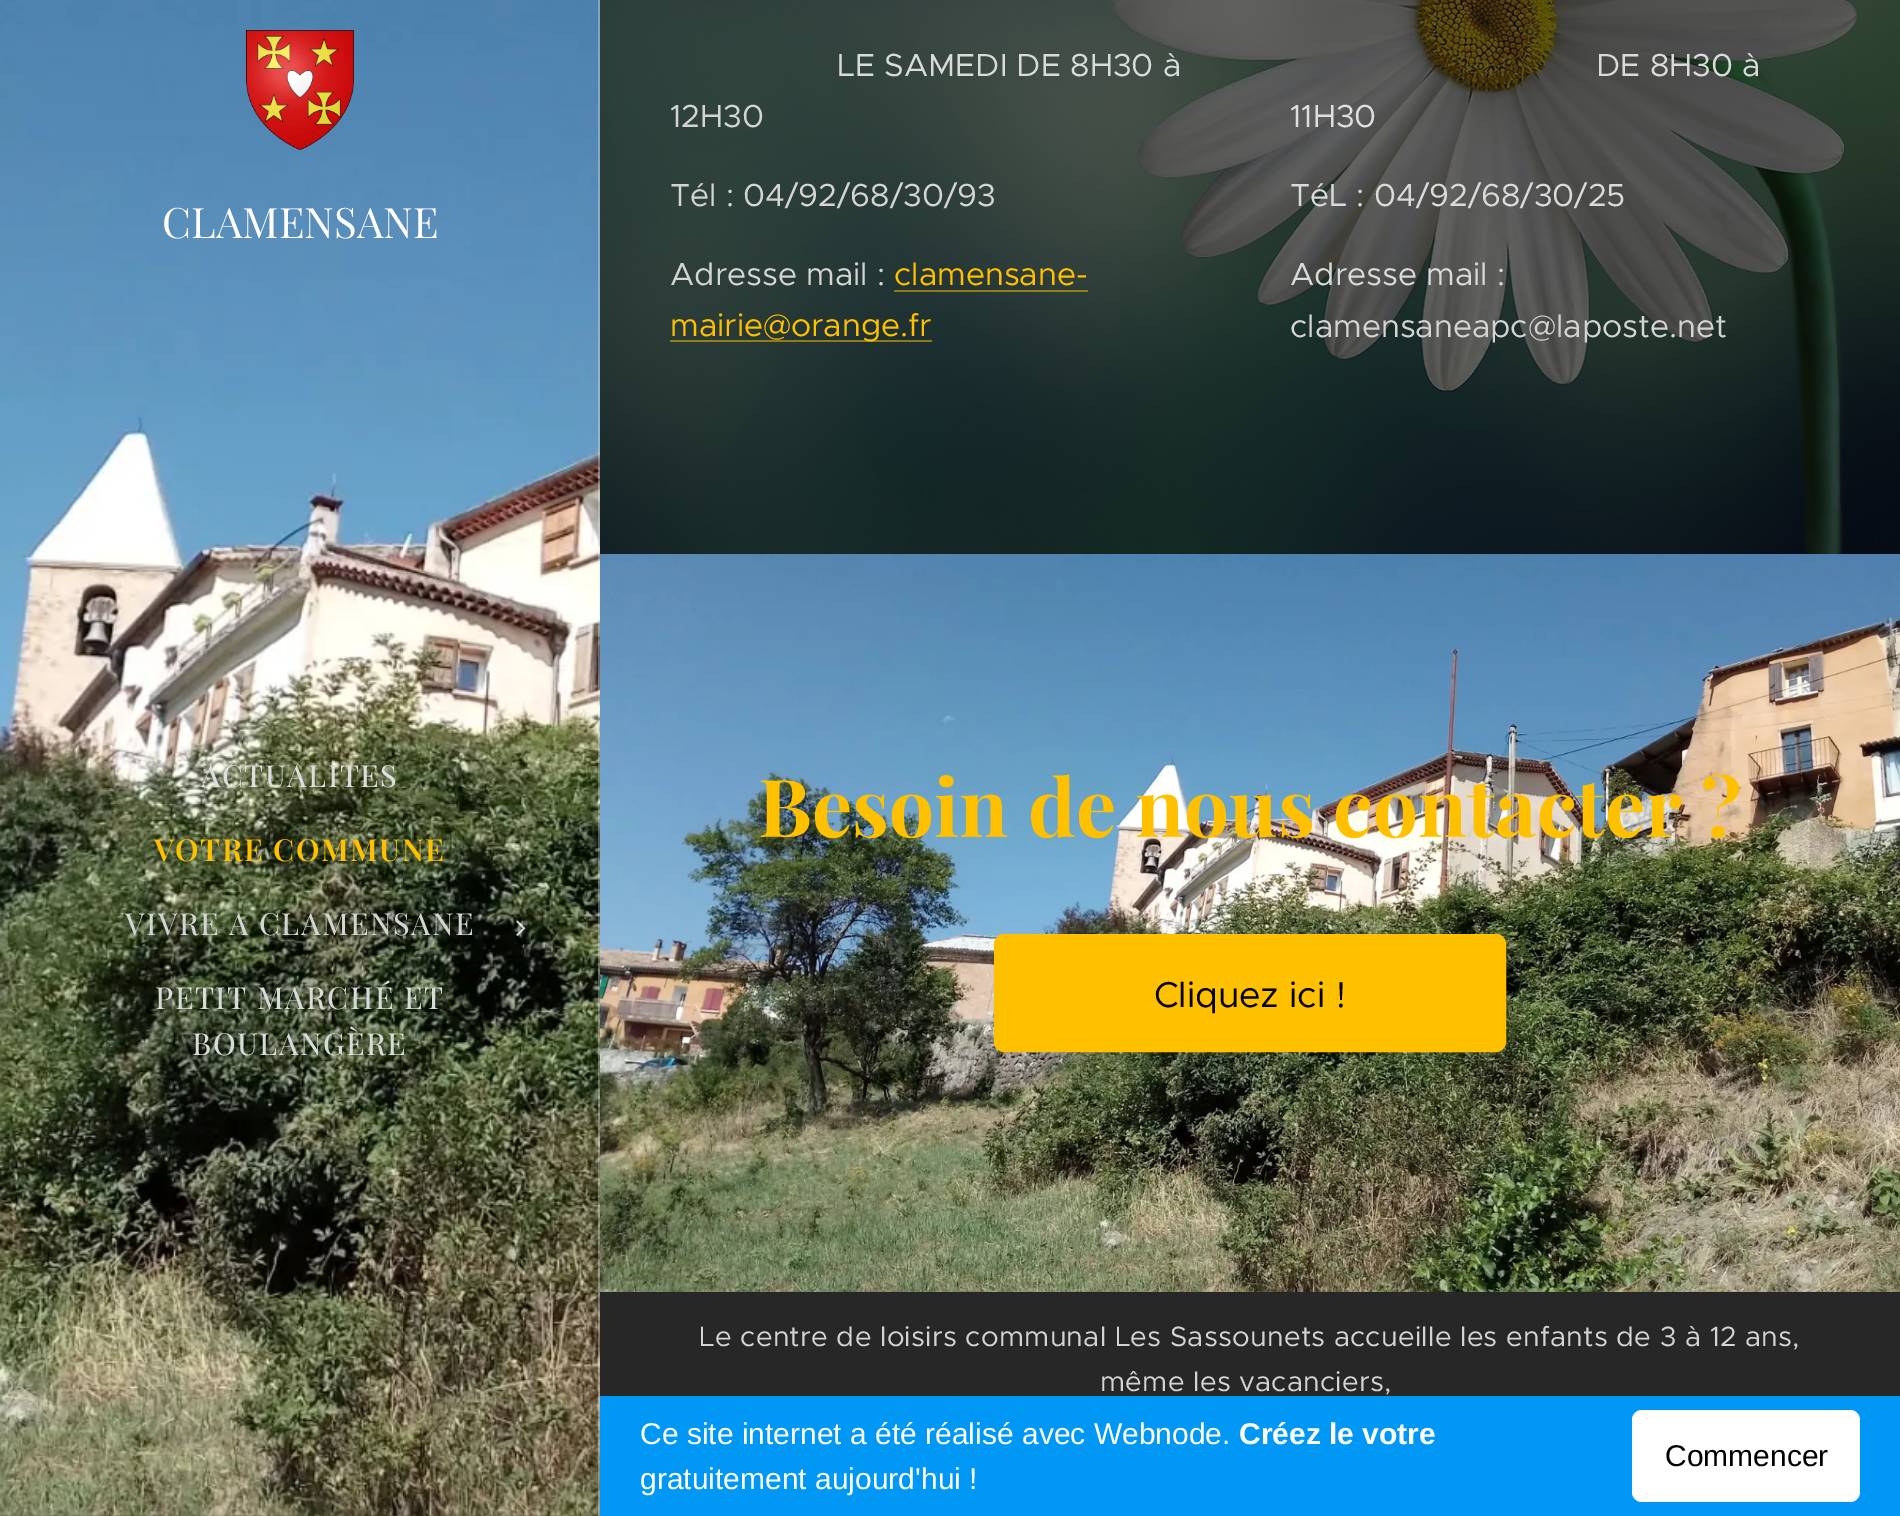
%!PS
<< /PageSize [1900 1516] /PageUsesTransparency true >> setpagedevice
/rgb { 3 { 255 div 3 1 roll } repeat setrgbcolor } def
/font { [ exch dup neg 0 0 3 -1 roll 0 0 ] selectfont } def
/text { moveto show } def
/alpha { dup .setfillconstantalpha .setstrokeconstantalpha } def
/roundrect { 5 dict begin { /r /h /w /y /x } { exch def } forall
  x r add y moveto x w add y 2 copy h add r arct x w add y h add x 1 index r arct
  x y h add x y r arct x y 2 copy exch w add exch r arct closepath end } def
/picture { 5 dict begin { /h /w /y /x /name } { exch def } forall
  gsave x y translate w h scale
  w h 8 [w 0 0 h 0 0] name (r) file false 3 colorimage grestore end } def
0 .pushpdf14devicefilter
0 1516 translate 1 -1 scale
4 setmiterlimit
255 255 255 rgb
0 0 1900 1516 rectfill
(img_01.rgb) 0 0 600 1516 picture
(img_02.rgb) 245 30 109 120 picture
(img_03.rgb) 516 920 10 16 picture
0.3 alpha
598 0 2 1516 rectfill
1 alpha
(img_04.rgb) 600 0 1300 554 picture
0.5 alpha
255 192 0 rgb
894 290 194 2 rectfill
670 340 262 2 rectfill
1 alpha
(img_05.rgb) 600 554 1300 738 picture
995 935 510 116 9 roundrect gsave fill grestore
2 setlinewidth
stroke
39 39 39 rgb
600 1292 1300 104 rectfill
0 151 245 rgb
600 1396 1300 120 rectfill
255 255 255 rgb
1632 1410 228 92 10 roundrect fill
/PlayfairDisplay-Regular 42 font
(CLAMENSANE) 162 238 text
/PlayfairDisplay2-Regular 30.4 font
222 222 222 rgb
201 787 moveto 1.5 0 (ACTUALITES) ashow
/PlayfairDisplay-SemiBold 30.4 font
255 192 0 rgb
154 861 moveto 1.5 0 (VOTRE COMMUNE) ashow
/PlayfairDisplay2-Regular 30.4 font
212 212 212 rgb
125 935 moveto 1.5 0 (VIVRE A CLAMENSANE) ashow
216 219 217 rgb
155 1009 moveto 1.5 0 (PETIT MARCHÉ ET) ashow
192 1055 moveto 1.5 0 (BOULANGÈRE) ashow
/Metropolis-Regular 32 font
(LE SAMEDI DE 8H30 à) 837 76 text
212 212 212 rgb
(12H30) 670 127 text
(Tél : 04/92/68/30/93) 670 206 text
(Adresse mail :) 670 285 text
255 192 0 rgb
(clamensane-) 894 285 text
(mairie@orange.fr) 670 336 text
216 219 217 rgb
(DE 8H30 à) 1596 76 text
222 222 222 rgb
(11H30) 1290 127 text
216 219 217 rgb
(TéL : 04/92/68/30/25) 1290 206 text
(Adresse mail :) 1290 285 text
212 212 212 rgb
(clamensaneapc@laposte.net) 1290 337 text
/PlayfairDisplay-Bold 80 font
255 192 0 rgb
(Besoin) 758 837 text
(de nous contacter ?) 1028 837 text
/Metropolis-Regular 36 font
0 0 0 rgb
(Cliquez ici !) 1154 1007 text
/Metropolis-Regular 28 font
212 212 212 rgb
699 1346 moveto 0.28 0 (Le centre de loisirs communal Les Sassounets accueille les enfants de 3 à 12 ans,) ashow
1100 1391 moveto 0.28 0 (même les vacanciers,) ashow
/LiberationSans-Regular 30 font
255 255 255 rgb
(Ce site internet a été réalisé avec Webnode.) 640 1444 text
/LiberationSans-Bold 30 font
(Créez le votre) 1239 1444 text
/LiberationSans-Regular 30 font
(gratuitement aujourd'hui !) 640 1489 text
0 0 0 rgb
(Commencer) 1665 1466 text
.poppdf14devicefilter showpage
